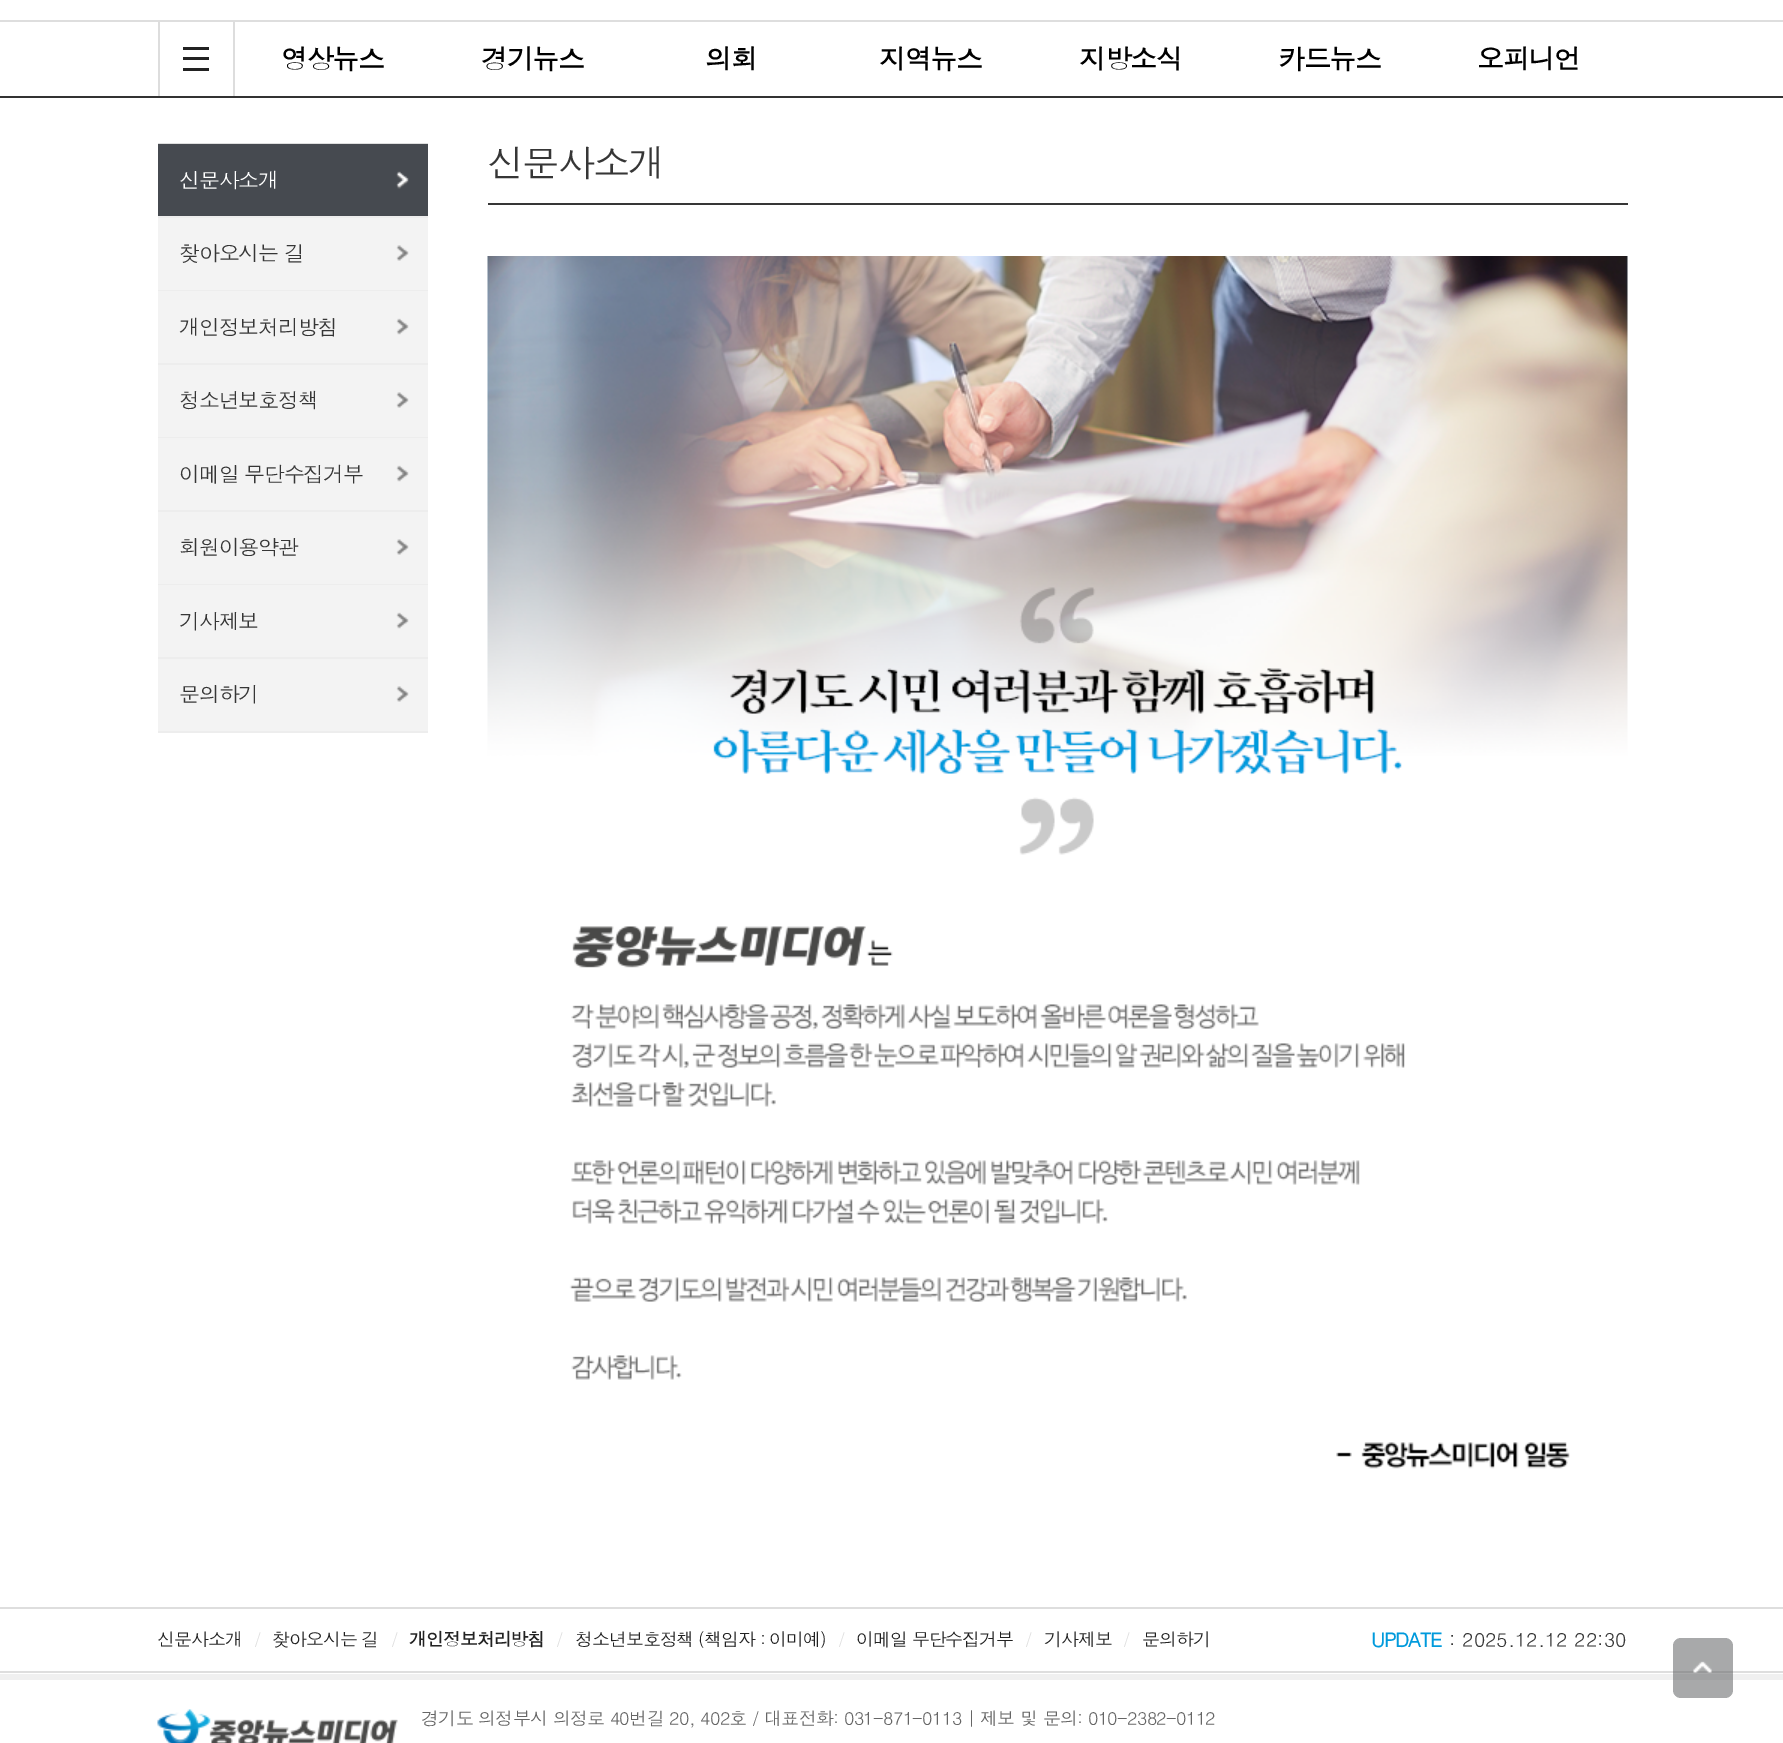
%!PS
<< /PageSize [1783 1743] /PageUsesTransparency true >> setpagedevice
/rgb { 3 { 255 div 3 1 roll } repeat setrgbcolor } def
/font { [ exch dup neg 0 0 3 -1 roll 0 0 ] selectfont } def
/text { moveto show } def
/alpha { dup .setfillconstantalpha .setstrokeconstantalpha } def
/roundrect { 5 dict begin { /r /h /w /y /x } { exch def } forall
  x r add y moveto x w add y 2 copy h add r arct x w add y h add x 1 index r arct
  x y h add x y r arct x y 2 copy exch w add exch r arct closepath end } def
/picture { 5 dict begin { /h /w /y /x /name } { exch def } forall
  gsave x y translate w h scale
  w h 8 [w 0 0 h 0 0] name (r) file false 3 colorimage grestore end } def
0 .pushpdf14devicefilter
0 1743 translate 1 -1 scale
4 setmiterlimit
255 255 255 rgb
0 0 1783 1743 rectfill
222 222 222 rgb
0 20 1783 2 rectfill
51 51 51 rgb
0 96 1783 2 rectfill
221 221 221 rgb
233 21 2 75 rectfill
158 21 2 75 rectfill
34 34 34 rgb
183 57 26 3 rectfill
183 47 26 3 rectfill
183 68 26 3 rectfill
54 54 54 rgb
488 203 1140 2 rectfill
(img_01.rgb) 487 256 1141 1213 picture
222 222 222 rgb
158 143 270 1 rectfill
237 237 237 rgb
158 216 270 2 rectfill
70 74 80 rgb
158 144 270 72 rectfill
(img_02.rgb) 396 171 13 18 picture
237 237 237 rgb
158 290 270 1 rectfill
243 243 243 rgb
158 218 270 72 rectfill
(img_03.rgb) 396 245 13 16 picture
237 237 237 rgb
158 363 270 2 rectfill
243 243 243 rgb
158 291 270 72 rectfill
(img_04.rgb) 396 318 13 17 picture
237 237 237 rgb
158 437 270 1 rectfill
243 243 243 rgb
158 365 270 72 rectfill
(img_03.rgb) 396 392 13 16 picture
237 237 237 rgb
158 510 270 2 rectfill
243 243 243 rgb
158 438 270 72 rectfill
(img_04.rgb) 396 465 13 17 picture
237 237 237 rgb
158 584 270 1 rectfill
243 243 243 rgb
158 512 270 72 rectfill
(img_03.rgb) 396 539 13 16 picture
237 237 237 rgb
158 657 270 2 rectfill
243 243 243 rgb
158 585 270 72 rectfill
(img_04.rgb) 396 612 13 17 picture
237 237 237 rgb
158 731 270 2 rectfill
243 243 243 rgb
158 659 270 72 rectfill
(img_03.rgb) 396 686 13 16 picture
222 222 222 rgb
0 1607 1783 2 rectfill
0 1671 1783 2 rectfill
240 240 240 rgb
0 1674 1783 6 rectfill
0.5 alpha
82 84 86 rgb
1673 1638 60 60 8 roundrect fill
1 alpha
(img_05.rgb) 1693 1661 19 12 picture
(img_06.rgb) 157 1709 241 34 picture
/Dotum-Bold 27 font
0 0 0 rgb
281 69 moveto -1.5 0 (영상뉴스) ashow
481 69 moveto -1.5 0 (경기뉴스) ashow
705 69 moveto -1.5 0 (의회) ashow
879 69 moveto -1.5 0 (지역뉴스) ashow
1079 69 moveto -1.5 0 (지방소식) ashow
1278 69 moveto -1.5 0 (카드뉴스) ashow
1477 69 moveto -1.5 0 (오피니언) ashow
/Dotum-Regular 37.5 font
54 54 54 rgb
487 177 moveto -2.25 0 (신문사소개) ashow
/Dotum-Regular 21 font
255 255 255 rgb
179 188 moveto -1.25 0 (신문사소개) ashow
54 54 54 rgb
179 261 moveto -1.25 0 (찾아오시는 길) ashow
179 335 moveto -1.25 0 (개인정보처리방침) ashow
179 408 moveto -1.25 0 (청소년보호정책) ashow
179 482 moveto -1.25 0 (이메일 무단수집거부) ashow
179 555 moveto -1.25 0 (회원이용약관) ashow
179 629 moveto -1.25 0 (기사제보) ashow
179 702 moveto -1.25 0 (문의하기) ashow
/Dotum-Regular 18 font
34 34 34 rgb
157 1646 moveto -1.1 0 (신문사소개) ashow
222 222 222 rgb
254 1646 moveto -1.25 0 (/) ashow
34 34 34 rgb
272 1646 moveto -1.1 0 (찾아오시는 길) ashow
222 222 222 rgb
391 1646 moveto -1.25 0 (/) ashow
/Dotum-Bold 18 font
34 34 34 rgb
409 1646 moveto -1.1 0 (개인정보처리방침) ashow
/Dotum-Regular 18 font
222 222 222 rgb
556 1646 moveto -1.25 0 (/) ashow
34 34 34 rgb
575 1646 moveto -1.1 0 (청소년보호정책 \(책임자 : 이미예\)) ashow
222 222 222 rgb
838 1646 moveto -1.25 0 (/) ashow
34 34 34 rgb
856 1646 moveto -1.1 0 (이메일 무단수집거부) ashow
222 222 222 rgb
1025 1646 moveto -1.25 0 (/) ashow
34 34 34 rgb
1044 1646 moveto -1.1 0 (기사제보) ashow
222 222 222 rgb
1123 1646 moveto -1.25 0 (/) ashow
34 34 34 rgb
1142 1646 moveto -1.1 0 (문의하기) ashow
/Dotum-Bold 19.5 font
0 154 220 rgb
1371 1647 moveto -1.25 0 (UPDATE) ashow
/Dotum-Regular 19.5 font
54 54 54 rgb
(: 2025.12.12 22:30) 1449 1647 text
/Dotum-Regular 18 font
102 102 102 rgb
421 1725 moveto -0.72 0 (경기도 의정부시 의정로 40번길 20, 402호 / 대표전화: 031-871-0113 | 제보 및 문의: 010-2382-0112) ashow
.poppdf14devicefilter showpage
